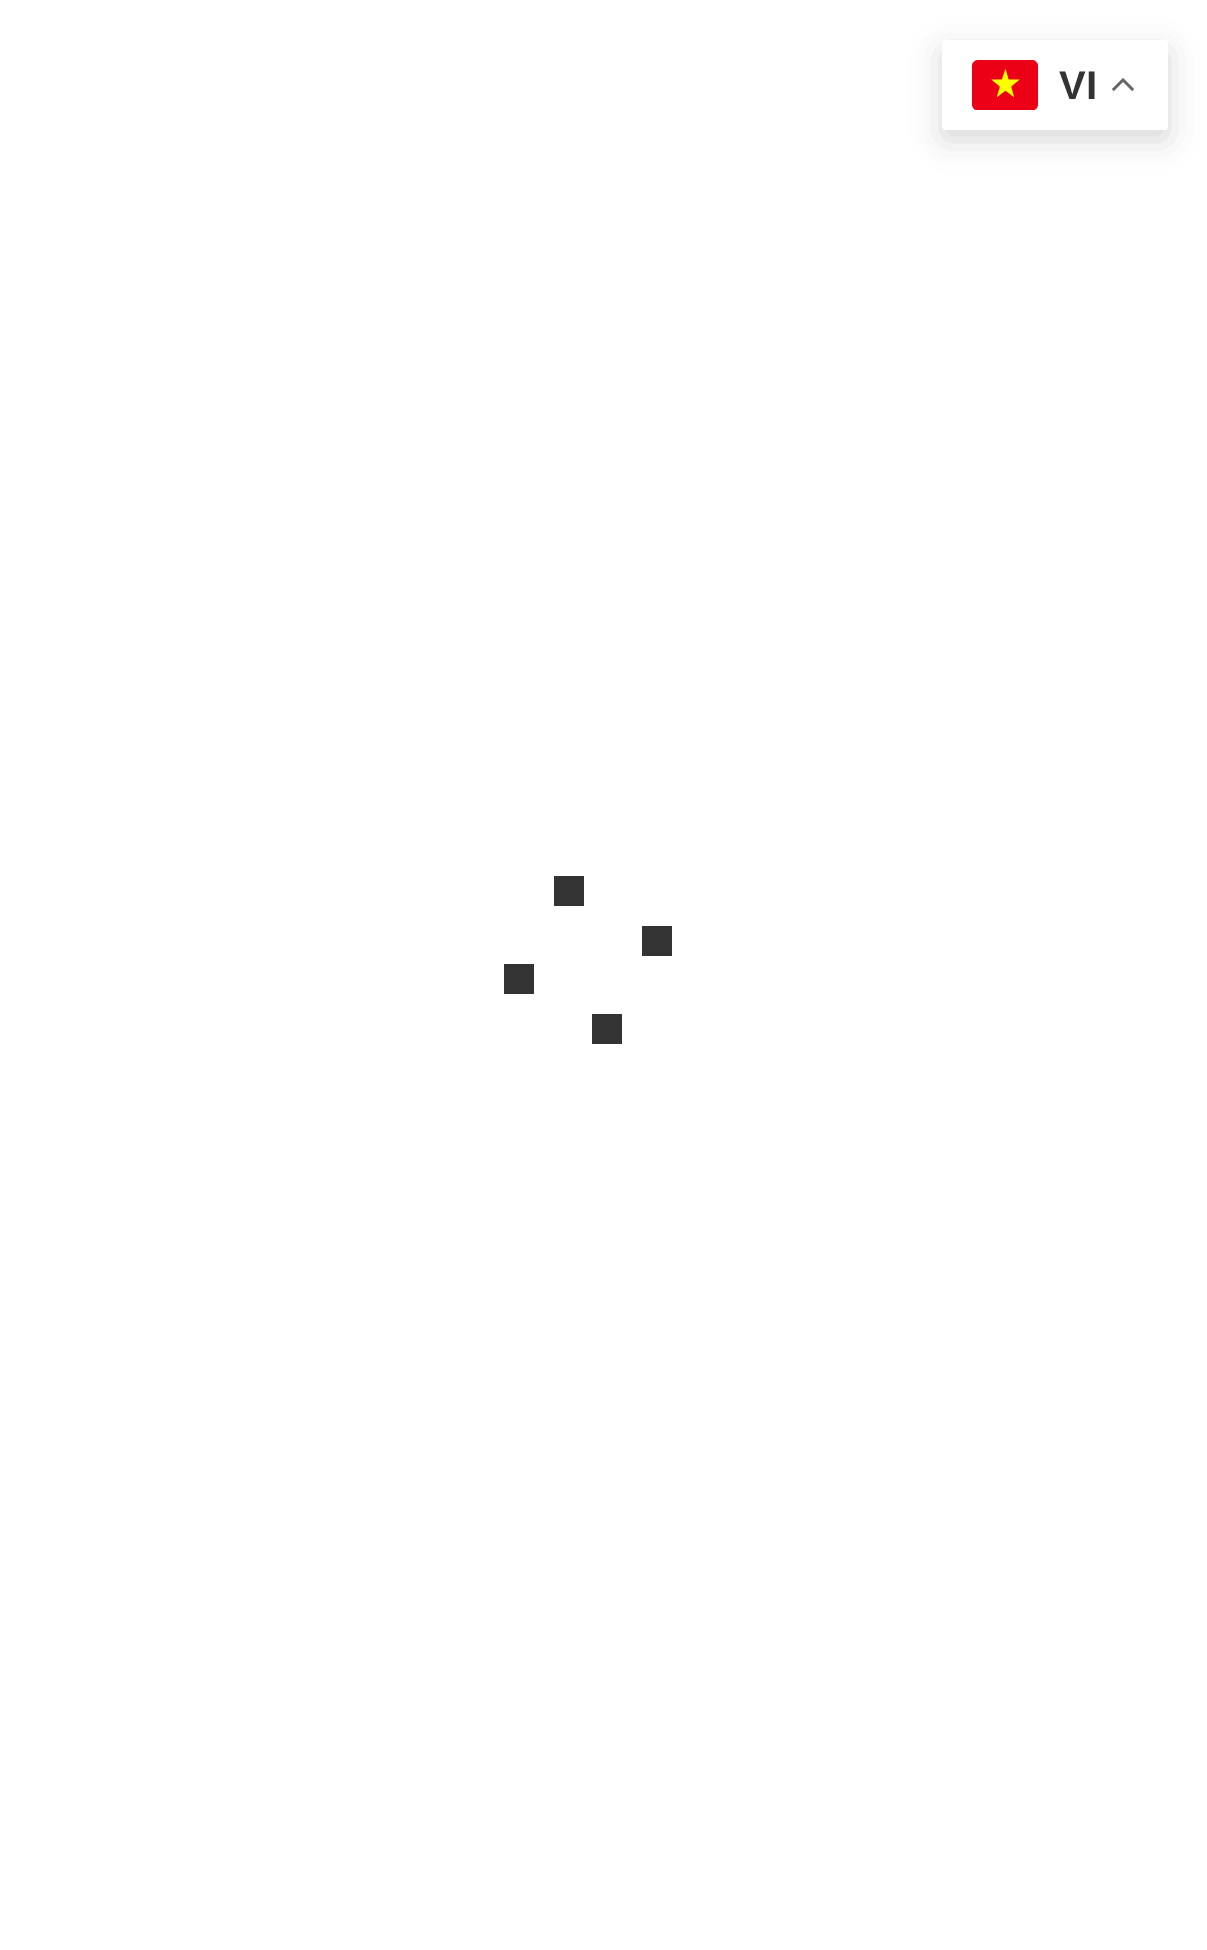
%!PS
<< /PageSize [1207 1950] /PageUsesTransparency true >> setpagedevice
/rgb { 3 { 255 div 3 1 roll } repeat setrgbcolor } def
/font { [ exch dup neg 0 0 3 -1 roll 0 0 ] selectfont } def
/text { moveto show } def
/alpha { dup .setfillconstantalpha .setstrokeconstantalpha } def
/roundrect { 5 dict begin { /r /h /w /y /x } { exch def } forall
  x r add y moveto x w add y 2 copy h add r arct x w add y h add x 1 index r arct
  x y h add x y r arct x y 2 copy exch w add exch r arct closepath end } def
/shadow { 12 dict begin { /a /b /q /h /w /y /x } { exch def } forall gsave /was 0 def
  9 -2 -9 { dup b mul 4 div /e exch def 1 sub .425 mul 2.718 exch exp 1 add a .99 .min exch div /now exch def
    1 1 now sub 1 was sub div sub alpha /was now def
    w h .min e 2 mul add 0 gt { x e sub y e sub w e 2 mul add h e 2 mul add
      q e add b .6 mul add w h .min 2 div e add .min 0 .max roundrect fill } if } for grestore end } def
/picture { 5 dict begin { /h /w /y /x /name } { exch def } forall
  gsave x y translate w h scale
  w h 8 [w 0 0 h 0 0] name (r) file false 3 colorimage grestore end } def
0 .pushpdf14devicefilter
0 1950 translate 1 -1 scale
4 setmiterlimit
255 255 255 rgb
0 0 1207 1950 rectfill
0 0 0 rgb
942 50 226 90 4 15 0.15 shadow
255 255 255 rgb
942 40 226 90 4 roundrect fill
236 0 21 rgb
978 60 moveto -3 0 -6 3 -6 6 rcurveto 0 38 rlineto 0 2 1 5 4 6 rcurveto 58 0 rlineto 3 -1 4 -4 4 -6 rcurveto 0 -38 rlineto 0 -3 -3 -6 -6 -6 rcurveto closepath fill
255 255 0 rgb
1014 97 moveto -8.5 -6.5 rlineto -8.5 6.5 rlineto 3 -10.5 rlineto -8.5 -7 rlineto 10.5 0 rlineto 3.5 -10.5 rlineto 3 10.5 rlineto 11 0 rlineto -8.5 7 rlineto closepath eofill
(img_01.rgb) 1112 78 22 13 picture
51 51 51 rgb
554 876 30 30 rectfill
642 926 30 30 rectfill
504 964 30 30 rectfill
592 1014 30 30 rectfill
/LiberationSans-Bold 40 font
(VI) 1059 99 text
.poppdf14devicefilter showpage
